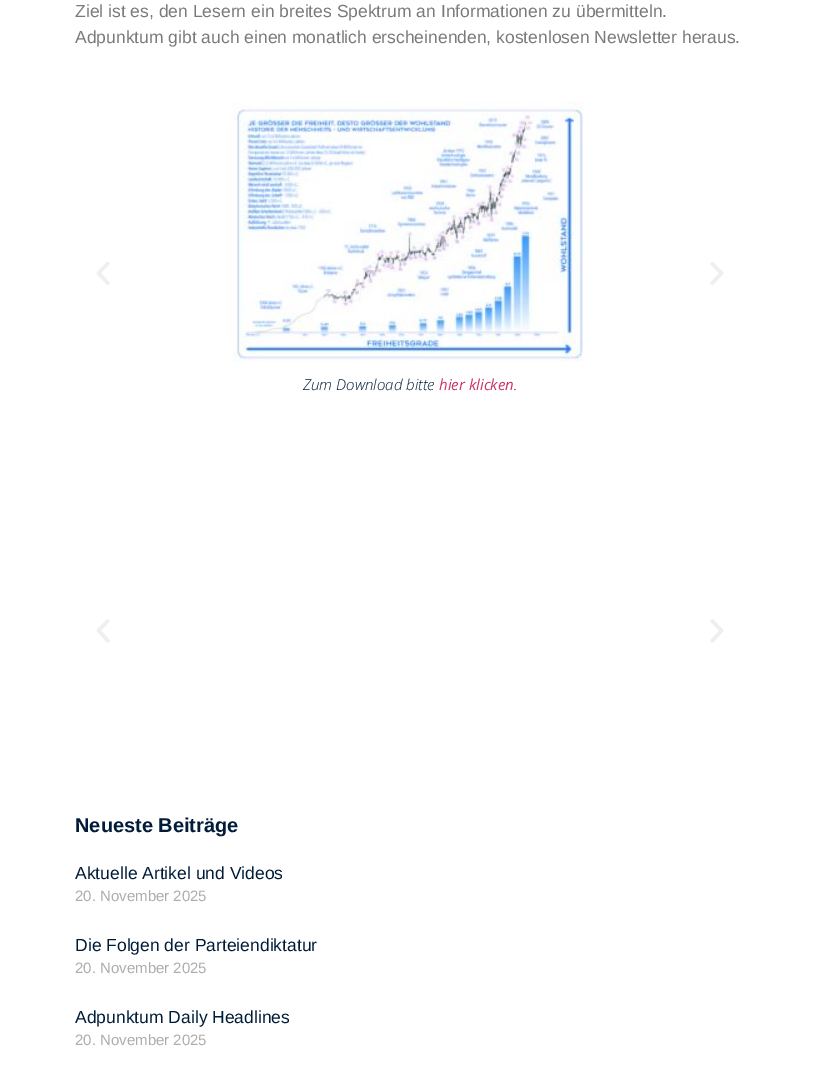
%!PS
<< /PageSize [820 1083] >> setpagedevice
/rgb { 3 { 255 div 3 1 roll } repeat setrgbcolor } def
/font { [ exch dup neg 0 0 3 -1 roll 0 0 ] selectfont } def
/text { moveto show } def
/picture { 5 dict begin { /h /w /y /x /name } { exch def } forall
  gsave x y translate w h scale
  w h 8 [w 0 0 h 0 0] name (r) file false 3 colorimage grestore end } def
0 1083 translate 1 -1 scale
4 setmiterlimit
255 255 255 rgb
0 0 820 1083 rectfill
(img_01.rgb) 96 262 14 23 picture
(img_02.rgb) 710 262 14 23 picture
(img_03.rgb) 227 102 356 260 picture
(img_04.rgb) 96 619 14 24 picture
(img_05.rgb) 710 619 14 24 picture
/LiberationSans-Regular 17.5 font
122 122 122 rgb
(Ziel ist es, den Lesern ein breites Spektrum an Informationen zu übermitteln.) 75 17 text
(Adpunktum gibt auch einen monatlich erscheinenden, kostenlosen Newsletter heraus.) 75 43 text
/OpenSans-LightItalic 15 font
0 28 56 rgb
(Zum Download bitte) 303 390 text
/OpenSans-Italic 15 font
204 51 102 rgb
(hier klicken) 439 390 text
/OpenSans-LightItalic 15 font
0 28 56 rgb
(.) 514 390 text
/LiberationSans-Bold 20 font
(Neueste Beiträge) 75 832 text
/LiberationSans-Regular 17.5 font
(Aktuelle Artikel und Videos) 75 879 text
/LiberationSans-Regular 15 font
173 173 173 rgb
(20. November 2025) 75 901 text
/LiberationSans-Regular 17.5 font
0 28 56 rgb
(Die Folgen der Parteiendiktatur) 75 951 text
/LiberationSans-Regular 15 font
173 173 173 rgb
(20. November 2025) 75 973 text
/LiberationSans-Regular 17.5 font
0 28 56 rgb
(Adpunktum Daily Headlines) 75 1023 text
/LiberationSans-Regular 15 font
173 173 173 rgb
(20. November 2025) 75 1045 text
showpage
